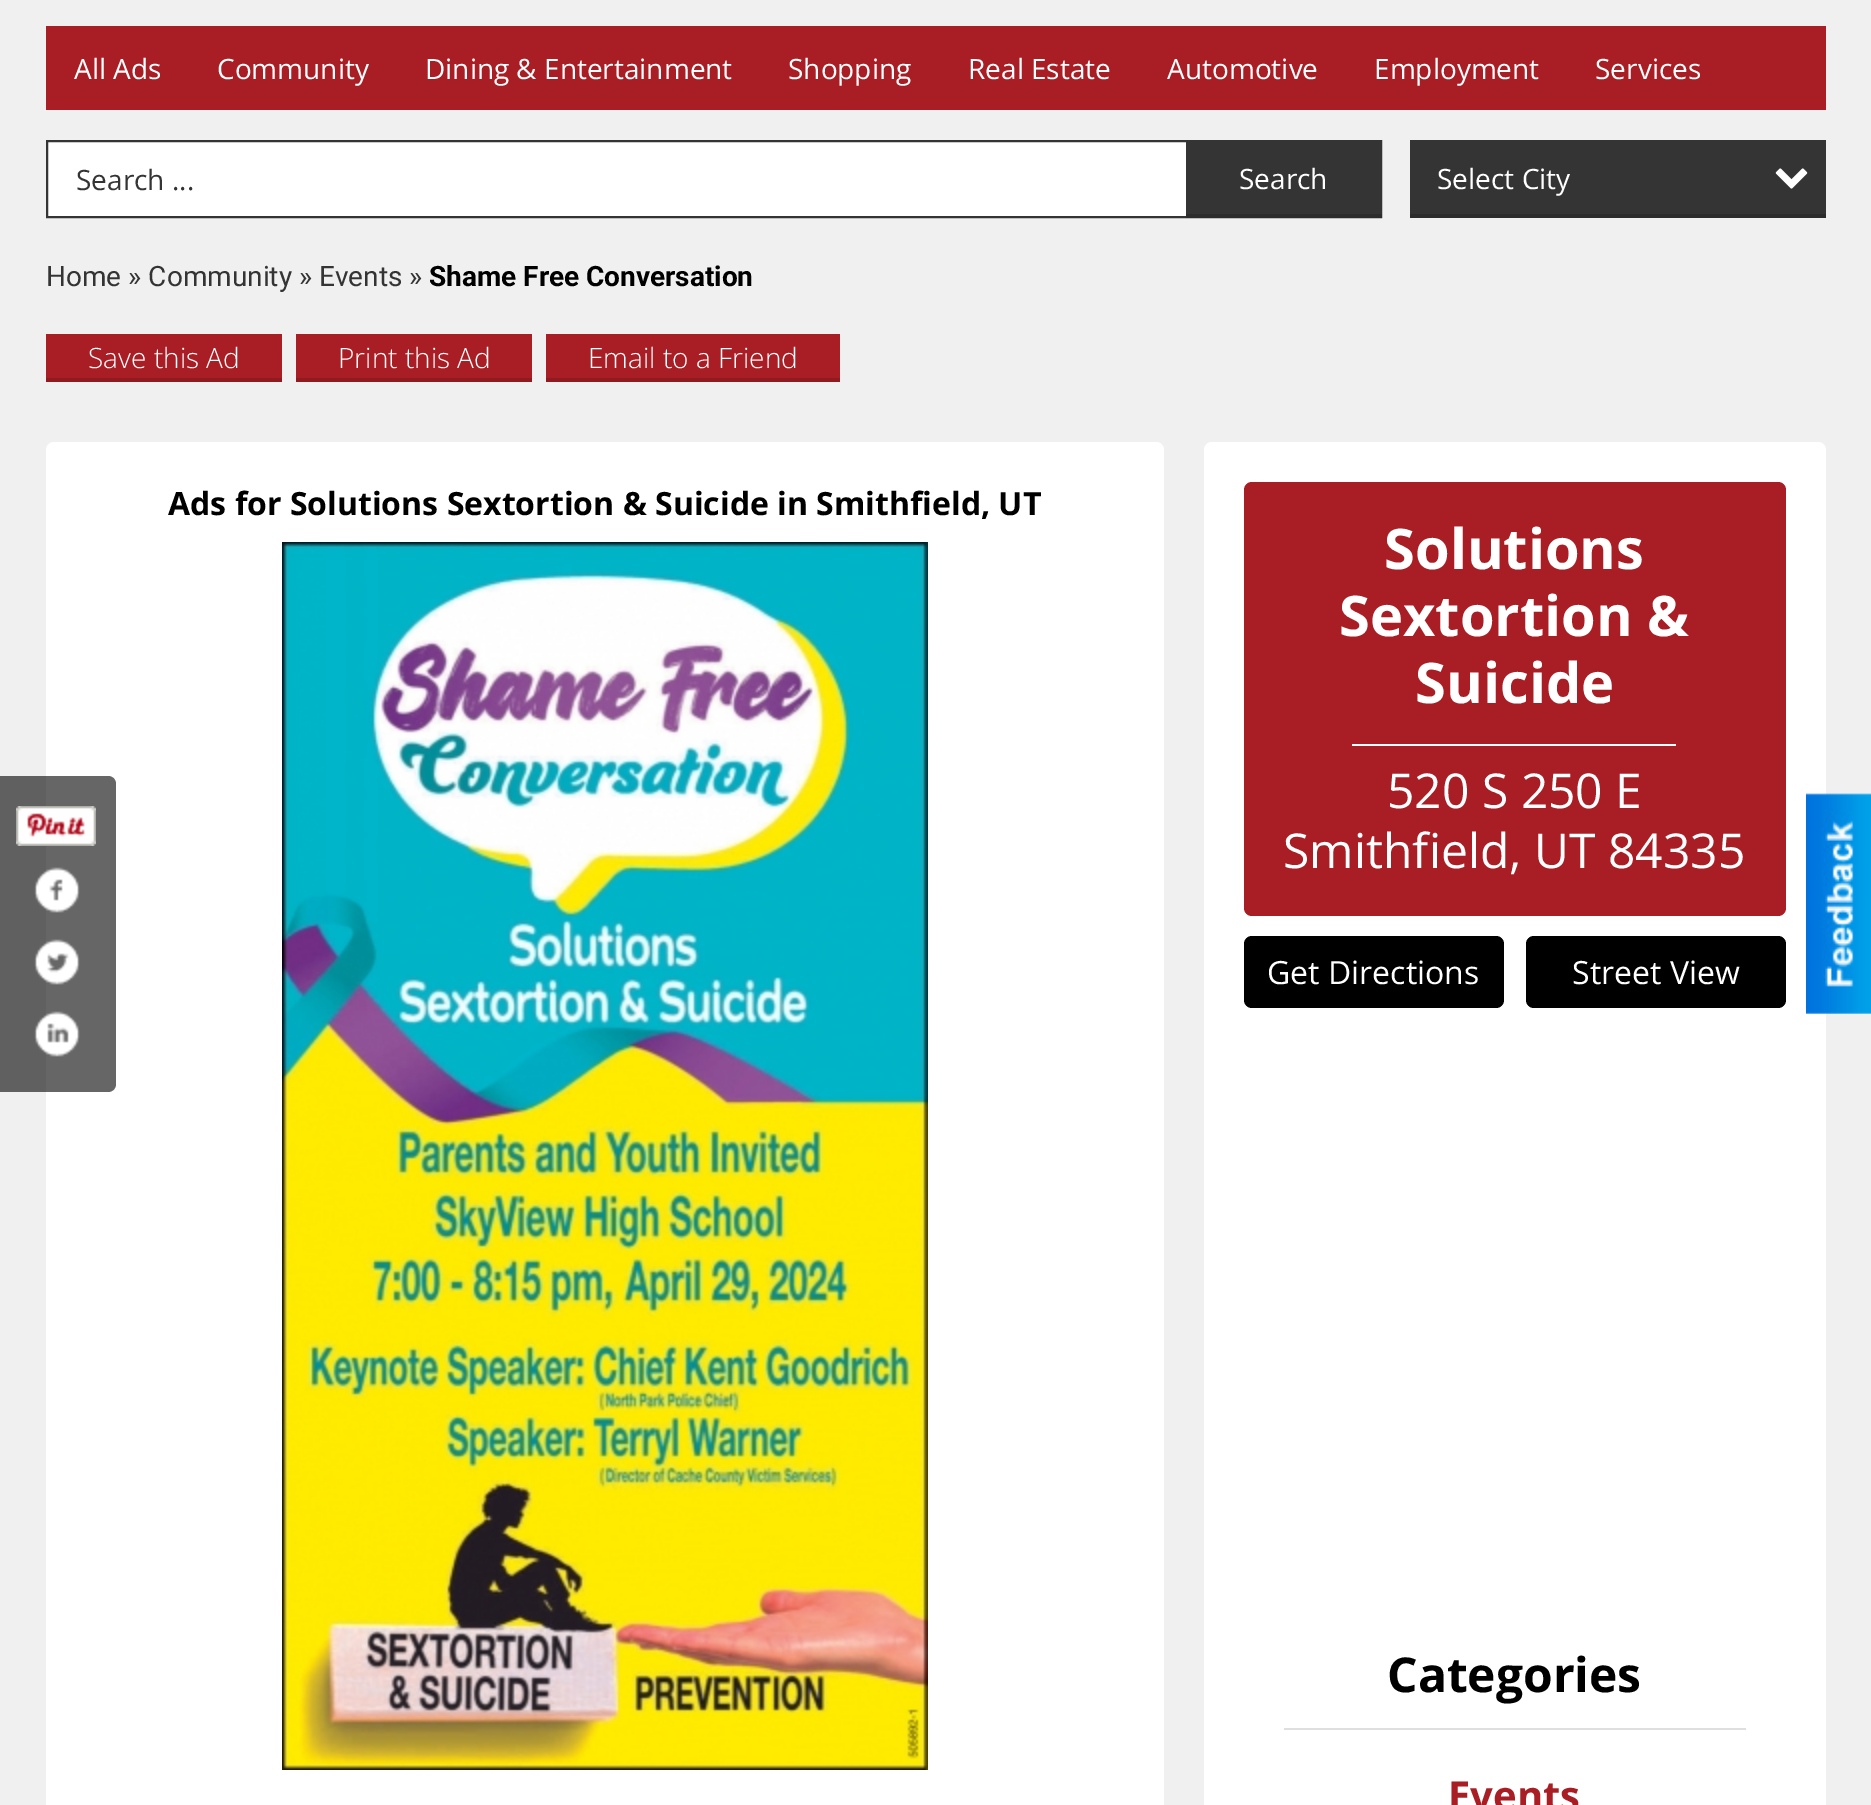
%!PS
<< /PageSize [1871 1805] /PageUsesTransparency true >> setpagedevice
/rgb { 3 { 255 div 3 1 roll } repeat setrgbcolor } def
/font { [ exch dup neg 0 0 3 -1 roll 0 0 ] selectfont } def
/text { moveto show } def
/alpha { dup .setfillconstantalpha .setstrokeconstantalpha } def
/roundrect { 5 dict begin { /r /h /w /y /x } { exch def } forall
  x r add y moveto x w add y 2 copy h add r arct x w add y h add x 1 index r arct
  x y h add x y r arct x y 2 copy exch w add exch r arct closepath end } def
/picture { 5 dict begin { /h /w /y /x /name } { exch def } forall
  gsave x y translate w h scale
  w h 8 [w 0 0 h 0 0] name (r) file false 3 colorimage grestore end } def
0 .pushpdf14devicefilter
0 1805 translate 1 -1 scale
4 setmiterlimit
240 240 240 rgb
0 0 1871 1805 rectfill
168 30 36 rgb
46 26 1780 84 rectfill
255 255 255 rgb
48 142 1138 74 rectfill
52 52 52 rgb
2 setlinewidth
47 141 1334 76 rectstroke
1186 142 194 72 rectfill
44 44 44 rgb
1186 214 196 4 rectfill
52 52 52 rgb
1410 140 416 74 rectfill
44 44 44 rgb
1410 214 416 4 rectfill
(img_01.rgb) 1775 168 33 21 picture
168 30 36 rgb
46 334 236 44 rectfill
143 26 31 rgb
46 378 236 4 rectfill
168 30 36 rgb
296 334 236 44 rectfill
143 26 31 rgb
296 378 236 4 rectfill
168 30 36 rgb
546 334 294 44 rectfill
143 26 31 rgb
546 378 294 4 rectfill
255 255 255 rgb
46 442 1118 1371 8 roundrect fill
(img_02.rgb) 282 542 646 1228 picture
1204 442 622 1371 8 roundrect fill
168 30 36 rgb
1244 482 542 434 8 roundrect fill
255 255 255 rgb
1352 744 324 2 rectfill
0 0 0 rgb
1244 936 260 72 8 roundrect fill
1526 936 260 72 8 roundrect fill
223 223 223 rgb
1284 1728 462 2 rectfill
0.6 alpha
0 0 0 rgb
0 776 moveto 108 0 rlineto 4.5 0 8 3.5 8 8 rcurveto 0 300 rlineto 0 4.5 -3.5 8 -8 8 rcurveto -108 0 rlineto closepath fill
1 alpha
(img_03.rgb) 16 806 80 40 picture
(img_04.rgb) 34 867 46 46 picture
(img_05.rgb) 34 939 46 46 picture
(img_06.rgb) 34 1011 46 46 picture
(img_07.rgb) 1806 793 65 221 picture
/OpenSans-Regular 28 font
255 255 255 rgb
(All Ads) 74 79 text
(Community) 217 79 text
(Dining & Entertainment) 425 79 text
(Shopping) 788 79 text
(Real Estate) 968 79 text
(Automotive) 1167 79 text
(Employment) 1374 79 text
(Services) 1595 79 text
52 52 52 rgb
(Search ...) 76 190 text
255 255 255 rgb
(Search) 1239 189 text
(Select City) 1437 189 text
/Roboto-Regular 28 font
52 52 52 rgb
(Home » Community » Events ») 46 286 text
/Roboto-Bold 28 font
0 0 0 rgb
(Shame Free Conversation) 429 286 text
/OpenSans-Light 28 font
255 255 255 rgb
(Save this Ad) 88 368 text
(Print this Ad) 338 368 text
(Email to a Friend) 588 368 text
/OpenSans-Bold 32 font
0 0 0 rgb
(Ads for Solutions Sextortion & Suicide in Smithfield, UT) 168 515 text
/OpenSans-Bold 56 font
255 255 255 rgb
(Solutions) 1384 569 text
(Sextortion &) 1339 636 text
(Suicide) 1415 703 text
/OpenSans-Regular 48 font
(520 S 250 E) 1387 808 text
(Smithfield, UT 84335) 1283 868 text
/OpenSans-Regular 32 font
(Get Directions) 1267 984 text
(Street View) 1572 984 text
/OpenSans-Bold 48 font
0 0 0 rgb
(Categories) 1387 1692 text
/OpenSans-Bold 40 font
168 30 36 rgb
(Events) 1448 1810 text
.poppdf14devicefilter showpage
